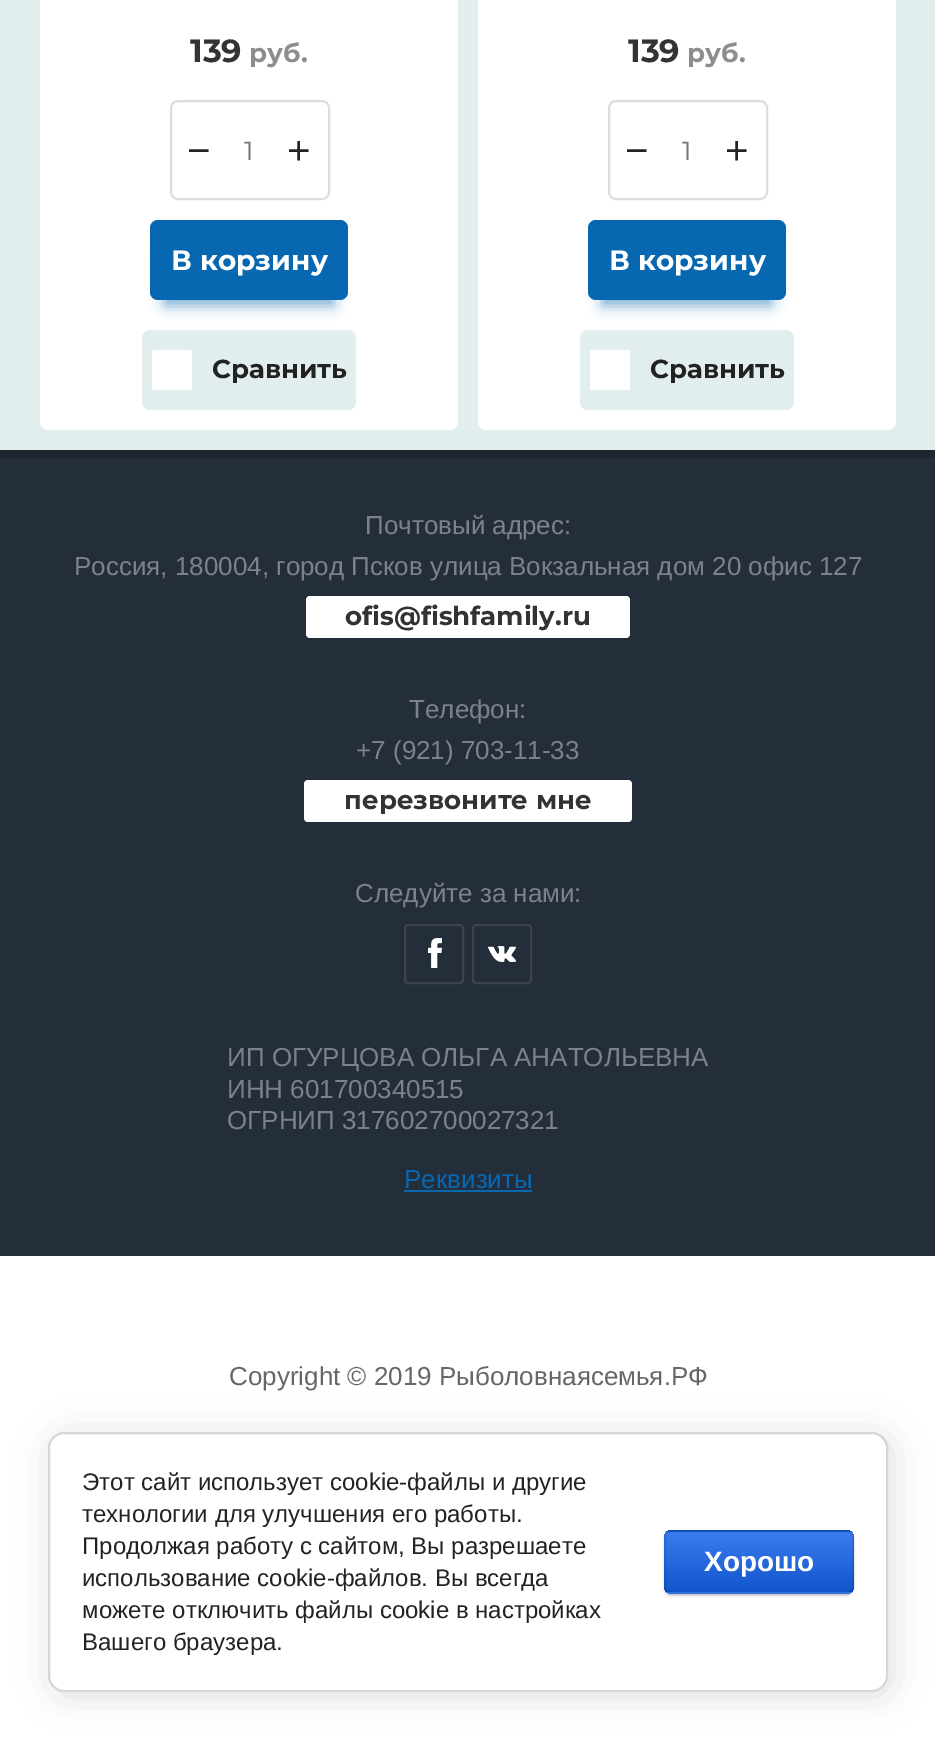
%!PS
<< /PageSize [935 1739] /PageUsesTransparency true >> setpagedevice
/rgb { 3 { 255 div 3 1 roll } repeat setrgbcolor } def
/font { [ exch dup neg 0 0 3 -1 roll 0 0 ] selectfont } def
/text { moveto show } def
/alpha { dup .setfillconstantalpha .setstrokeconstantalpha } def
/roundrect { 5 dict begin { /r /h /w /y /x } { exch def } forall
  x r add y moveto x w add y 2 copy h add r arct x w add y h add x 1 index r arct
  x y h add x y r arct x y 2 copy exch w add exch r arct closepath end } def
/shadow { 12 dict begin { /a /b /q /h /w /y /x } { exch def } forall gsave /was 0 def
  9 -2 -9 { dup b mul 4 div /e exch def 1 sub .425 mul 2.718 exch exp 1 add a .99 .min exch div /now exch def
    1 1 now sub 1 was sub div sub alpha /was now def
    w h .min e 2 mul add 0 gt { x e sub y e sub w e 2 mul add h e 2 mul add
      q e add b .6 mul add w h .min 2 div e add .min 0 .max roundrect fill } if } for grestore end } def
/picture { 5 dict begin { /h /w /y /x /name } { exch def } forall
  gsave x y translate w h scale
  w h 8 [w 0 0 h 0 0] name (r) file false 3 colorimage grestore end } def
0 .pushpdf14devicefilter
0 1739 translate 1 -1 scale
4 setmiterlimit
255 255 255 rgb
0 0 935 1739 rectfill
226 238 238 rgb
0 0 935 450 rectfill
255 255 255 rgb
40 -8 418 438 8 roundrect fill
222 222 222 rgb
2 setlinewidth
171 101 158 98 7 roundrect stroke
7 104 177 rgb
164 254 170 52 0 7 0.52 shadow
150 220 198 80 8 roundrect fill
226 238 238 rgb
142 330 214 80 8 roundrect fill
255 255 255 rgb
152 350 40 40 2 roundrect fill
478 -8 418 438 8 roundrect fill
222 222 222 rgb
609 101 158 98 7 roundrect stroke
7 104 177 rgb
602 254 170 52 0 7 0.52 shadow
588 220 198 80 8 roundrect fill
226 238 238 rgb
580 330 214 80 8 roundrect fill
255 255 255 rgb
590 350 40 40 2 roundrect fill
36 46 59 rgb
0 458 935 798 rectfill
29 37 47 rgb
0 450 935 8 rectfill
255 255 255 rgb
306 596 324 42 4 roundrect fill
304 780 328 42 4 roundrect fill
58 67 79 rgb
405 925 58 58 3 roundrect stroke
(img_01.rgb) 428 938 14 30 picture
473 925 58 58 3 roundrect stroke
(img_02.rgb) 488 946 28 16 picture
7 104 177 rgb
404 1190 128 2 rectfill
0 0 0 rgb
52 1436 840 260 16 18 0.14 shadow
255 255 255 rgb
49 1433 838 258 15 roundrect gsave fill grestore
214 214 214 rgb
stroke
0 0 0 rgb
664 1532 190 64 8 1 0.2 shadow
gsave
664 1530 190 64 8 roundrect clip newpath
gsave 664 1530 moveto 190 0 rlineto 0 2 rlineto -190 0 rlineto closepath clip newpath
<< /ShadingType 2 /ColorSpace /DeviceRGB /Coords [759 1472 759 1532] /Extend [true true] /Function << /FunctionType 2 /Domain [0 1] /C0 [0.231 0.486 0.937] /C1 [0.067 0.333 0.8] /N 1 >> >> shfill grestore
gsave 664 1532 moveto 190 0 rlineto 0 60 rlineto -190 0 rlineto closepath clip newpath
<< /ShadingType 2 /ColorSpace /DeviceRGB /Coords [759 1532 759 1592] /Extend [true true] /Function << /FunctionType 2 /Domain [0 1] /C0 [0.231 0.486 0.937] /C1 [0.067 0.333 0.8] /N 1 >> >> shfill grestore
gsave 664 1592 moveto 190 0 rlineto 0 2 rlineto -190 0 rlineto closepath clip newpath
<< /ShadingType 2 /ColorSpace /DeviceRGB /Coords [759 1592 759 1652] /Extend [true true] /Function << /FunctionType 2 /Domain [0 1] /C0 [0.231 0.486 0.937] /C1 [0.067 0.333 0.8] /N 1 >> >> shfill grestore
grestore
0.1 alpha
665 1531 188 62 7 roundrect stroke
/Montserrat-Bold 32 font
1 alpha
51 51 51 rgb
(139) 190 62 text
/Montserrat-Bold 26 font
141 141 141 rgb
(руб.) 249 62 text
/LiberationSans-Regular 40 font
34 34 34 rgb
(−) 187 164 text
/Montserrat-Regular 26 font
119 119 119 rgb
(1) 244 160 text
/LiberationSans-Regular 40 font
34 34 34 rgb
(+) 287 164 text
/Montserrat-Bold 28 font
255 255 255 rgb
(В корзину) 171 270 text
/Montserrat-Bold 26 font
34 34 34 rgb
(Сравнить) 212 378 text
/Montserrat-Bold 32 font
51 51 51 rgb
(139) 628 62 text
/Montserrat-Bold 26 font
141 141 141 rgb
(руб.) 687 62 text
/LiberationSans-Regular 40 font
34 34 34 rgb
(−) 625 164 text
/Montserrat-Regular 26 font
119 119 119 rgb
(1) 682 160 text
/LiberationSans-Regular 40 font
34 34 34 rgb
(+) 725 164 text
/Montserrat-Bold 28 font
255 255 255 rgb
(В корзину) 609 270 text
/Montserrat-Bold 26 font
34 34 34 rgb
(Сравнить) 650 378 text
/LiberationSans-Regular 26 font
124 130 137 rgb
(Почтовый адрес:) 365 534 text
(Россия, 180004, город Псков улица Вокзальная дом 20 офис 127) 74 575 text
/Montserrat-Bold 26 font
51 51 51 rgb
(ofis@fishfamily.ru) 345 625 text
/LiberationSans-Regular 26 font
124 130 137 rgb
(Телефон:) 409 718 text
(+7 \(921\) 703-11-33) 356 759 text
/Montserrat-Bold 26 font
51 51 51 rgb
(перезвоните мне) 344 809 text
/LiberationSans-Regular 26 font
124 130 137 rgb
(Следуйте за нами:) 355 902 text
(ИП ОГУРЦОВА ОЛЬГА АНАТОЛЬЕВНА) 227 1066 text
(ИНН 601700340515) 227 1098 text
(ОГРНИП 317602700027321) 227 1129 text
7 104 177 rgb
(Реквизиты) 404 1188 text
102 102 102 rgb
(Copyright © 2019 Рыболовнаясемья.РФ) 229 1385 text
/LiberationSans-Regular 24 font
34 34 34 rgb
(Этот сайт использует cookie-файлы и другие) 82 1490 text
(технологии для улучшения его работы.) 82 1522 text
(Продолжая работу с сайтом, Вы разрешаете) 82 1554 text
(использование cookie-файлов. Вы всегда) 82 1586 text
(можете отключить файлы cookie в настройках) 82 1618 text
(Вашего браузера.) 82 1650 text
/LiberationSans-Bold 28 font
255 255 255 rgb
(Хорошо) 704 1571 text
.poppdf14devicefilter showpage
